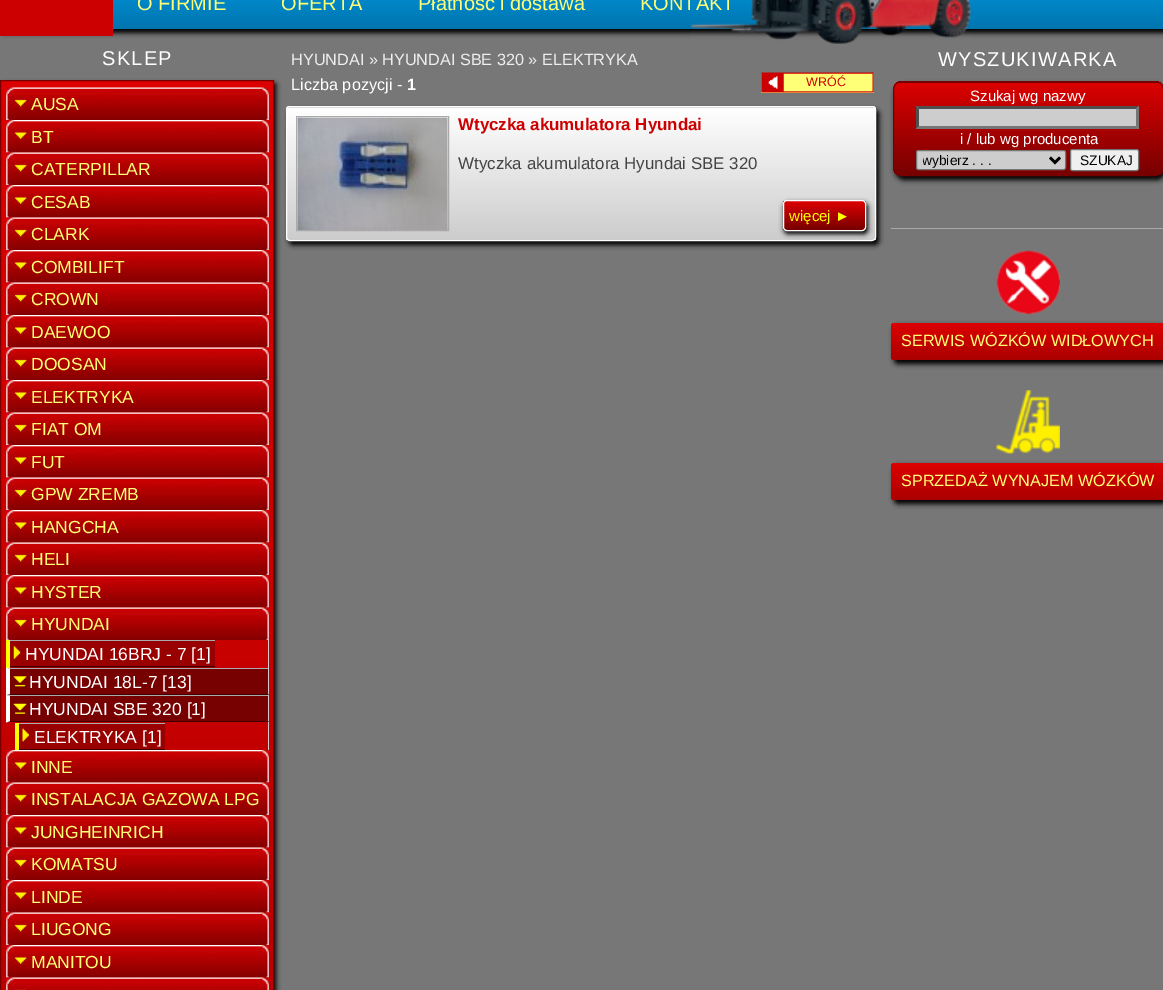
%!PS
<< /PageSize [1163 990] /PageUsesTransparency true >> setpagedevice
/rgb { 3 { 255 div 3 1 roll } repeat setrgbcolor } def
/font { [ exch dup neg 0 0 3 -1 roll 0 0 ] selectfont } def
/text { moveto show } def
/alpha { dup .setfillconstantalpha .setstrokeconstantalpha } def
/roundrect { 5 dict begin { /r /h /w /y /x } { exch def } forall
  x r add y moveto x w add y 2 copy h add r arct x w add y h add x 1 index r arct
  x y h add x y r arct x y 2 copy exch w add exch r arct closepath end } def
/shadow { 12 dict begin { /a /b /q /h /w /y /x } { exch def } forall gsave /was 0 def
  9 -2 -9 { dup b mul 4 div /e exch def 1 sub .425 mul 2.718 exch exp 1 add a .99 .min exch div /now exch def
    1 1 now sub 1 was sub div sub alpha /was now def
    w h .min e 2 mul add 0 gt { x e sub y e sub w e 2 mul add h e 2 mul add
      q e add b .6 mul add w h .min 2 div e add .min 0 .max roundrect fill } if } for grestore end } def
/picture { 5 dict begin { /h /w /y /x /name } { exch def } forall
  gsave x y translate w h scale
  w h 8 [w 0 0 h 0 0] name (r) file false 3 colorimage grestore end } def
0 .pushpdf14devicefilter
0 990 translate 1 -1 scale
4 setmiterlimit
119 119 119 rgb
0 0 1163 990 rectfill
0 0 0 rgb
3 -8 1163 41 0 2.5 1 shadow
gsave 113 0 moveto 1050 0 rlineto 0 29 rlineto -1050 0 rlineto closepath clip newpath
<< /ShadingType 2 /ColorSpace /DeviceRGB /Coords [582 -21 582 29] /Extend [true true] /Function << /FunctionType 2 /Domain [0 1] /C0 [0 0.58 0.863] /C1 [0 0.459 0.682] /N 1 >> >> shfill grestore
204 0 0 rgb
0 0 113 36 rectfill
(img_01.rgb) 690 0 282 44 picture
0 0 0 rgb
3 84 273 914 0 2.5 1 shadow
gsave 1 81 moveto 272 0 rlineto 0 909 rlineto -272 0 rlineto closepath clip newpath
<< /ShadingType 2 /ColorSpace /DeviceRGB /Coords [137 81 137 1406] /Extend [true true] /Function << /FunctionType 2 /Domain [0 1] /C0 [0.867 0 0] /C1 [0.667 0 0] /N 1 >> >> shfill grestore
119 0 0 rgb
0.5 80.5 273 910 rectstroke
(img_02.rgb) 6 87 263 33 picture
(img_03.rgb) 6 120 263 33 picture
(img_04.rgb) 6 152 263 33 picture
(img_05.rgb) 6 185 263 33 picture
(img_06.rgb) 6 217 263 33 picture
(img_07.rgb) 6 250 263 33 picture
(img_08.rgb) 6 282 263 33 picture
(img_09.rgb) 6 315 263 33 picture
(img_10.rgb) 6 347 263 33 picture
(img_11.rgb) 6 380 263 33 picture
(img_12.rgb) 6 412 263 33 picture
(img_13.rgb) 6 445 263 33 picture
(img_14.rgb) 6 477 263 33 picture
(img_15.rgb) 6 510 263 33 picture
(img_16.rgb) 6 542 263 33 picture
(img_17.rgb) 6 575 263 33 picture
(img_18.rgb) 6 607 263 33 picture
204 204 204 rgb
268 640 1 28 rectfill
255 255 0 rgb
6 640 4 28 rectfill
153 0 0 rgb
10 641 205 27 rectfill
(img_19.rgb) 13 646 8 13 picture
170 170 170 rgb
10 640 205 1 rectfill
68 0 0 rgb
10 666 205 1 rectfill
119 0 0 rgb
10 669 258 25 rectfill
(img_20.rgb) 13 676 14 11 picture
170 170 170 rgb
6 668 moveto 263 0 rlineto -1 1 rlineto -258 0 rlineto closepath fill
204 204 204 rgb
268 668 1 27 rectfill
68 0 0 rgb
269 695 moveto -263 0 rlineto 4 -1 rlineto 258 0 rlineto closepath fill
255 255 255 rgb
6 695 moveto 0 -27.5 rlineto 4 1.5 rlineto 0 25 rlineto closepath fill
119 0 0 rgb
10 696 258 25 rectfill
(img_21.rgb) 13 703 14 11 picture
170 170 170 rgb
6 695 moveto 263 0 rlineto -1 1 rlineto -258 0 rlineto closepath fill
204 204 204 rgb
268 695 1 55 rectfill
68 0 0 rgb
269 722 moveto -263 0 rlineto 4 -1 rlineto 258 0 rlineto closepath fill
255 255 255 rgb
6 722.5 moveto 0 -27.5 rlineto 4 1 rlineto 0 25 rlineto closepath fill
255 255 0 rgb
15 723 4 27 rectfill
153 0 0 rgb
19 724 146 25 rectfill
(img_22.rgb) 22 728 7 14 picture
170 170 170 rgb
19 723 146 1 rectfill
68 0 0 rgb
19 749 146 1 rectfill
(img_23.rgb) 6 750 263 33 picture
(img_24.rgb) 6 782 263 33 picture
(img_25.rgb) 6 815 263 33 picture
(img_26.rgb) 6 847 263 33 picture
(img_27.rgb) 6 880 263 33 picture
(img_28.rgb) 6 912 263 33 picture
(img_29.rgb) 6 945 263 33 picture
(img_30.rgb) 6 977 263 13 picture
255 255 119 rgb
761 73 113 20 rectfill
(img_31.rgb) 761 72 113 21 picture
0 0 0 rgb
289 110 590 135 4 2.5 1 shadow
gsave
286 106 590 135 4 roundrect clip newpath
gsave 286 106 moveto 590 0 rlineto 0 2 rlineto -590 0 rlineto closepath clip newpath
<< /ShadingType 2 /ColorSpace /DeviceRGB /Coords [581 -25 581 108] /Extend [true true] /Function << /FunctionType 2 /Domain [0 1] /C0 [1 1 1] /C1 [0.8 0.8 0.8] /N 1 >> >> shfill grestore
gsave 286 108 moveto 590 0 rlineto 0 132 rlineto -590 0 rlineto closepath clip newpath
<< /ShadingType 2 /ColorSpace /DeviceRGB /Coords [581 107 581 240] /Extend [true true] /Function << /FunctionType 2 /Domain [0 1] /C0 [1 1 1] /C1 [0.8 0.8 0.8] /N 1 >> >> shfill grestore
grestore
255 255 255 rgb
286.5 106.5 589 134 3.5 roundrect stroke
170 170 170 rgb
296.5 116.5 152 114 rectstroke
(img_32.rgb) 297 117 151 113 picture
0 0 0 rgb
784 203 84 31 4 2.5 1 shadow
gsave
783 200 83 31 4 roundrect clip newpath
gsave 783 201 moveto 83 0 rlineto 0 29 rlineto -83 0 rlineto closepath clip newpath
<< /ShadingType 2 /ColorSpace /DeviceRGB /Coords [824 201 824 230] /Extend [true true] /Function << /FunctionType 2 /Domain [0 1] /C0 [0.867 0 0] /C1 [0.467 0 0] /N 1 >> >> shfill grestore
grestore
255 255 255 rgb
783.5 200.5 82 30 3.5 roundrect stroke
0 0 0 rgb
895 85 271 95 9 2.5 1 shadow
gsave
893 81 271 95 9 roundrect clip newpath
gsave 893 81 moveto 270 0 rlineto 0 2 rlineto -270 0 rlineto closepath clip newpath
<< /ShadingType 2 /ColorSpace /DeviceRGB /Coords [1028 -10 1028 83] /Extend [true true] /Function << /FunctionType 2 /Domain [0 1] /C0 [0.867 0 0] /C1 [0.467 0 0] /N 1 >> >> shfill grestore
gsave 893 83 moveto 270 0 rlineto 0 92 rlineto -270 0 rlineto closepath clip newpath
<< /ShadingType 2 /ColorSpace /DeviceRGB /Coords [1028 82 1028 175] /Extend [true true] /Function << /FunctionType 2 /Domain [0 1] /C0 [0.867 0 0] /C1 [0.467 0 0] /N 1 >> >> shfill grestore
grestore
119 0 0 rgb
893.5 81.5 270 94 8.5 roundrect stroke
205 205 205 rgb
916 106 223 23 rectfill
79 79 79 rgb
916 106 moveto 223 0 rlineto -3 3 rlineto -217 0 rlineto closepath fill
118 118 118 rgb
1139 106 moveto 0 23 rlineto -3 -3 rlineto 0 -17 rlineto closepath fill
1139 129 moveto -223 0 rlineto 3 -3 rlineto 217 0 rlineto closepath fill
79 79 79 rgb
916 129 moveto 0 -23 rlineto 3 3 rlineto 0 17 rlineto closepath fill
205 205 205 rgb
916.5 150.5 149 19 2 roundrect gsave fill grestore
118 118 118 rgb
stroke
0 0 0 rgb
2.5 setlinewidth
1050 157.5 moveto 5 5 rlineto 5 -5 rlineto stroke
239 239 239 rgb
1070.5 149.5 68 21 2 roundrect gsave fill grestore
118 118 118 rgb
1 setlinewidth
stroke
170 170 170 rgb
891 228 272 1 rectfill
(img_33.rgb) 996 250 64 64 picture
0 0 0 rgb
894 326 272 38 4 2.5 1 shadow
gsave 891 323 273 37 4 roundrect clip newpath
<< /ShadingType 2 /ColorSpace /DeviceRGB /Coords [1028 323 1028 360] /Extend [true true] /Function << /FunctionType 2 /Domain [0 1] /C0 [0.867 0 0] /C1 [0.667 0 0] /N 1 >> >> shfill grestore
(img_34.rgb) 996 390 64 64 picture
894 466 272 38 4 2.5 1 shadow
gsave 891 463 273 37 4 roundrect clip newpath
<< /ShadingType 2 /ColorSpace /DeviceRGB /Coords [1028 463 1028 500] /Extend [true true] /Function << /FunctionType 2 /Domain [0 1] /C0 [0.867 0 0] /C1 [0.667 0 0] /N 1 >> >> shfill grestore
/LiberationSans-Regular 20 font
255 255 119 rgb
(O FIRMIE) 137 10 text
(OFERTA) 281 10 text
(Płatność i dostawa) 418 10 text
(KONTAKT) 640 10 text
255 255 255 rgb
102 65 moveto 1.25 0 (SKLEP) ashow
/LiberationSans-Regular 17.5 font
255 255 119 rgb
(AUSA) 31 110 text
(BT) 31 143 text
(CATERPILLAR) 31 175 text
(CESAB) 31 208 text
(CLARK) 31 240 text
(COMBILIFT) 31 273 text
(CROWN) 31 305 text
(DAEWOO) 31 338 text
(DOOSAN) 31 370 text
(ELEKTRYKA) 31 403 text
(FIAT OM) 31 435 text
(FUT) 31 468 text
(GPW ZREMB) 31 500 text
(HANGCHA) 31 533 text
(HELI) 31 565 text
(HYSTER) 31 598 text
(HYUNDAI) 31 630 text
255 255 255 rgb
(HYUNDAI 16BRJ - 7 [1]) 25 660 text
(HYUNDAI 18L-7 [13]) 29 688 text
(HYUNDAI SBE 320 [1]) 29 715 text
(ELEKTRYKA [1]) 34 743 text
255 255 119 rgb
(INNE) 31 773 text
(INSTALACJA GAZOWA LPG) 31 805 text
(JUNGHEINRICH) 31 838 text
(KOMATSU) 31 870 text
(LINDE) 31 903 text
(LIUGONG) 31 935 text
(MANITOU) 31 968 text
/LiberationSans-Regular 16.25 font
238 238 238 rgb
(HYUNDAI » HYUNDAI SBE 320 » ELEKTRYKA) 291 65 text
255 255 255 rgb
(Liczba pozycji -) 291 90 text
/LiberationSans-Bold 16.25 font
(1) 407 90 text
/LiberationSans-Regular 12.5 font
204 0 0 rgb
(WRÓĆ) 806 86 text
/LiberationSans-Bold 16.9 font
(Wtyczka akumulatora Hyundai) 458 130 text
/LiberationSans-Regular 16.9 font
68 68 68 rgb
(Wtyczka akumulatora Hyundai SBE 320) 458 169 text
/LiberationSans-Regular 15 font
255 255 0 rgb
(więcej ►) 789 221 text
/LiberationSans-Regular 20 font
255 255 255 rgb
938 66 moveto 1.25 0 (WYSZUKIWARKA) ashow
/LiberationSans-Regular 15 font
(Szukaj wg nazwy) 970 101 text
(i / lub wg producenta) 960 144 text
gsave
923 151 122 18 rectclip
/LiberationSans-Regular 13.75 font
0 0 0 rgb
(wybierz . . .) 922 165 text
grestore
/LiberationSans-Regular 13.75 font
0 0 0 rgb
(SZUKAJ) 1080 165 text
/LiberationSans-Regular 16.25 font
255 255 119 rgb
(SERWIS WÓZKÓW WIDŁOWYCH) 901 346 text
(SPRZEDAŻ WYNAJEM WÓZKÓW) 901 486 text
.poppdf14devicefilter showpage
